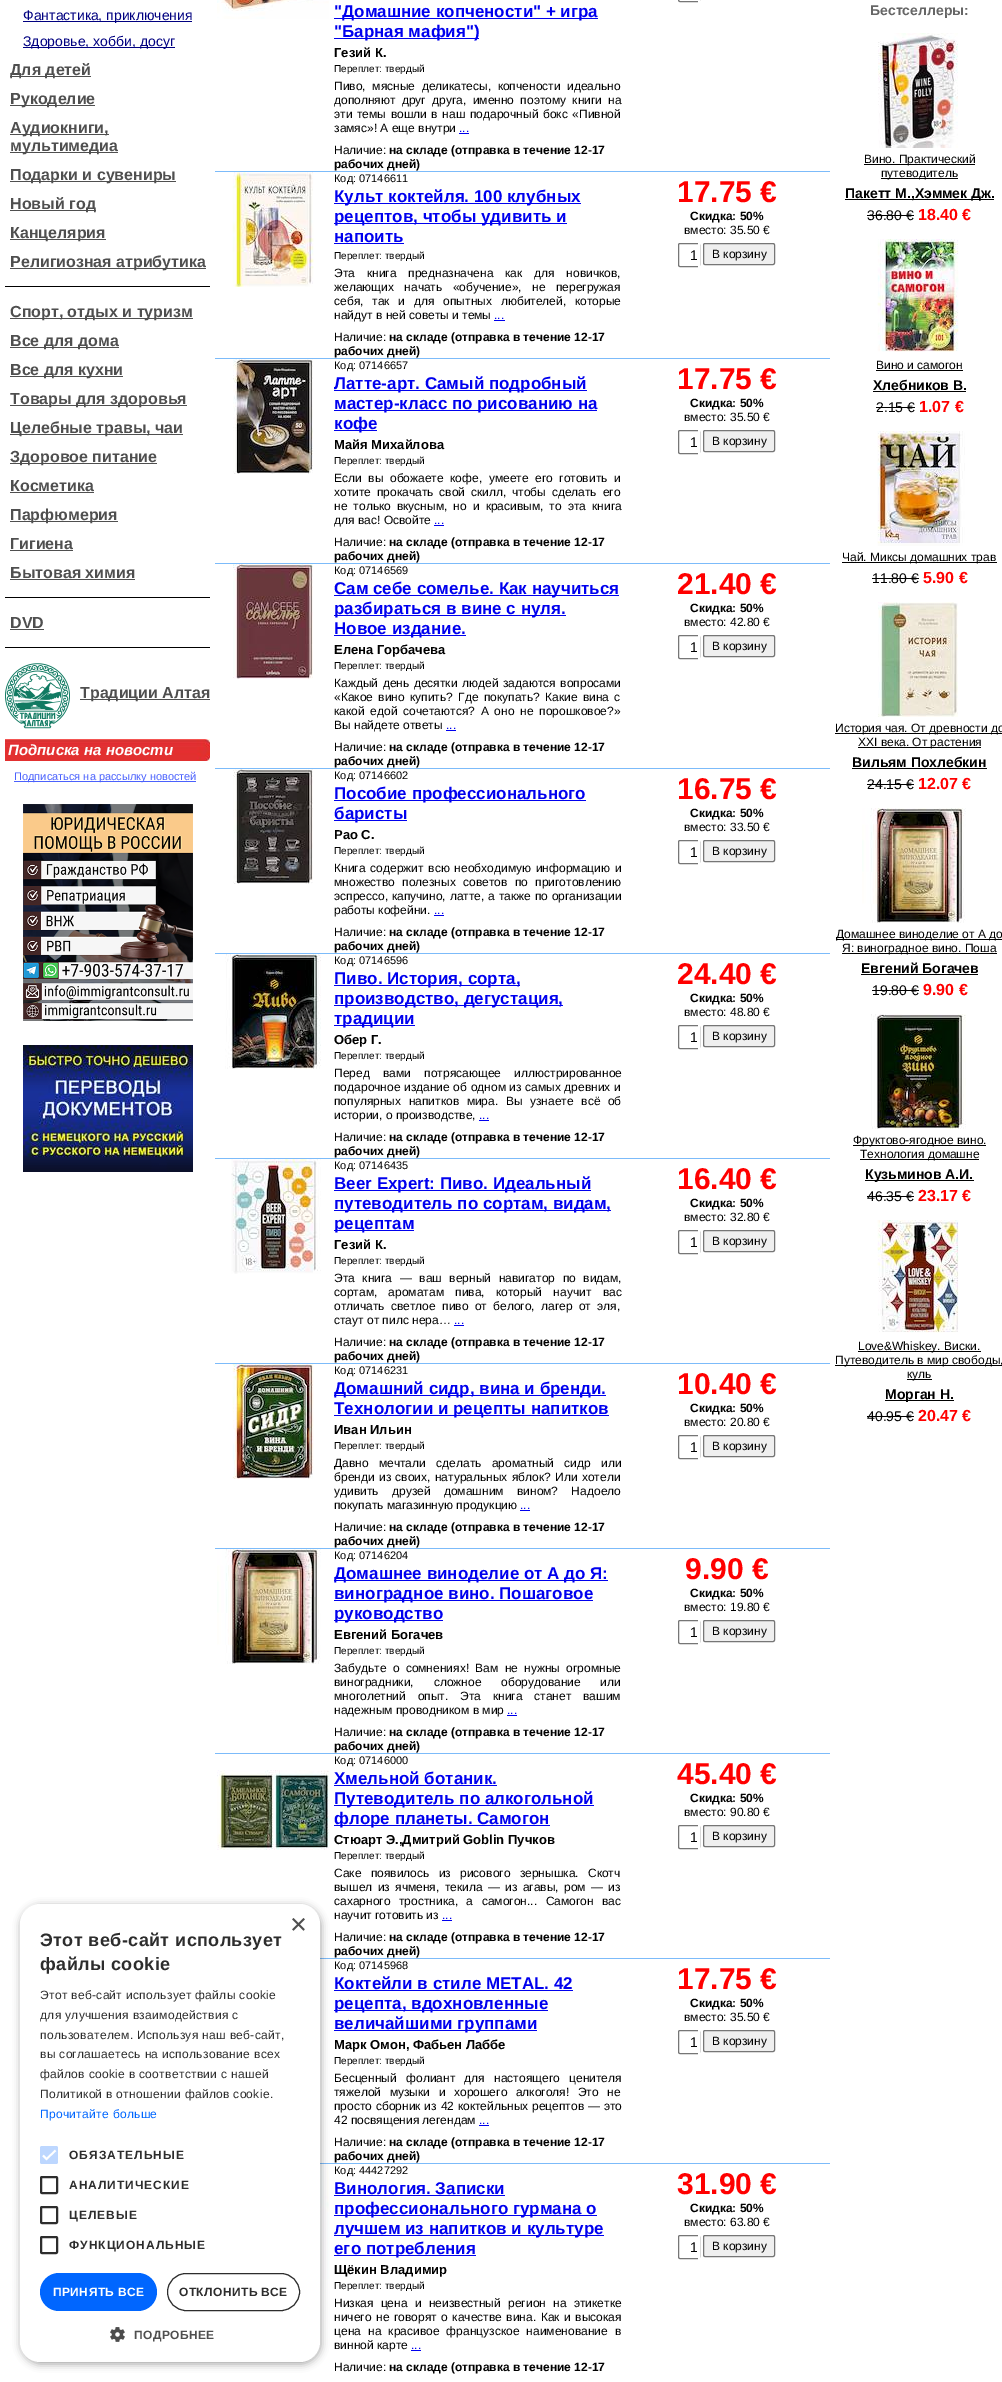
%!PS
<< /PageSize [1002 2382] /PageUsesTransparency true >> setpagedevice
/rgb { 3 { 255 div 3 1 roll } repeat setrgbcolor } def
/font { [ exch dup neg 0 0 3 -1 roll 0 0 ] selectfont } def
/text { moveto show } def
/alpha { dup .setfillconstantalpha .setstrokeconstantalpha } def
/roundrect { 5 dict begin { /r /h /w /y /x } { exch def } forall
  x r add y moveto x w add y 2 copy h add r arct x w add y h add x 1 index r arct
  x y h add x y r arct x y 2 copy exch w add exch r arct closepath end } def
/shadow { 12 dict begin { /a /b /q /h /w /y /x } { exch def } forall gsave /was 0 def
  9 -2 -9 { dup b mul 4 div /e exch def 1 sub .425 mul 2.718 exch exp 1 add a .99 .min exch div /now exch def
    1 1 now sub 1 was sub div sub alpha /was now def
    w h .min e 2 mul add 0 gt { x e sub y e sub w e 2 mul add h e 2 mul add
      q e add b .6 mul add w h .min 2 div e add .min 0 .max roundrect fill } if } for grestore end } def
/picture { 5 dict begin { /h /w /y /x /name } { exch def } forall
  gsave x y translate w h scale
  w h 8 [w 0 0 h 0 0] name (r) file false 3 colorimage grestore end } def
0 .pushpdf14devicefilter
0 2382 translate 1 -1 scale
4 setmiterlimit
255 255 255 rgb
0 0 1002 2382 rectfill
0 0 128 rgb
23 21 169 1 rectfill
23 47 152 1 rectfill
79 79 79 rgb
10 76 81 1 rectfill
10 105 85 1 rectfill
10 134 99 1 rectfill
10 152 108 1 rectfill
10 181 166 1 rectfill
10 210 86 1 rectfill
10 239 96 1 rectfill
10 268 196 1 rectfill
0 0 0 rgb
5 286 205 1 rectfill
79 79 79 rgb
10 318 183 1 rectfill
10 347 109 1 rectfill
10 376 113 1 rectfill
10 405 177 1 rectfill
10 434 173 1 rectfill
10 463 147 1 rectfill
10 492 84 1 rectfill
10 521 108 1 rectfill
10 550 63 1 rectfill
10 579 125 1 rectfill
0 0 0 rgb
5 597 205 1 rectfill
79 79 79 rgb
10 629 34 1 rectfill
0 0 0 rgb
5 647 205 1 rectfill
(img_01.rgb) 5 663 65 66 picture
79 79 79 rgb
80 699 130 1 rectfill
(img_02.rgb) 5 739 205 22 picture
74 97 253 rgb
14 781 182 1 rectfill
(img_03.rgb) 23 804 170 217 picture
(img_04.rgb) 23 1045 170 127 picture
(img_05.rgb) 217 0 112 19 picture
0 0 238 rgb
334 18 264 1 rectfill
334 38 145 1 rectfill
459 133 10 1 rectfill
118 118 118 rgb
678.5 -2.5 21 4 1.5 roundrect stroke
255 255 255 rgb
698 0 2 6 rectfill
124 187 250 rgb
215 171 615 1 rectfill
(img_06.rgb) 232 172 82 115 picture
0 0 238 rgb
334 203 247 1 rectfill
334 223 233 1 rectfill
334 243 70 1 rectfill
494 320 11 1 rectfill
118 118 118 rgb
678.5 243.5 21 23 1.5 roundrect stroke
255 255 255 rgb
698 237 2 34 rectfill
239 239 239 rgb
703.5 243.5 71 21 1.5 roundrect gsave fill grestore
118 118 118 rgb
stroke
124 187 250 rgb
215 358 615 1 rectfill
(img_07.rgb) 233 359 80 115 picture
0 0 238 rgb
334 390 253 1 rectfill
334 410 263 1 rectfill
334 430 43 1 rectfill
434 525 10 1 rectfill
118 118 118 rgb
678.5 430.5 21 23 1.5 roundrect stroke
255 255 255 rgb
698 424 2 34 rectfill
239 239 239 rgb
703.5 430.5 71 21 1.5 roundrect gsave fill grestore
118 118 118 rgb
stroke
124 187 250 rgb
215 563 615 1 rectfill
(img_08.rgb) 233 564 80 115 picture
0 0 238 rgb
334 595 285 1 rectfill
334 615 232 1 rectfill
334 635 132 1 rectfill
446 730 10 1 rectfill
118 118 118 rgb
678.5 635.5 21 23 1.5 roundrect stroke
255 255 255 rgb
698 629 2 34 rectfill
239 239 239 rgb
703.5 635.5 71 21 1.5 roundrect gsave fill grestore
118 118 118 rgb
stroke
124 187 250 rgb
215 768 615 1 rectfill
(img_09.rgb) 233 769 80 115 picture
0 0 238 rgb
334 800 252 1 rectfill
334 820 73 1 rectfill
434 915 10 1 rectfill
118 118 118 rgb
678.5 840.5 21 23 1.5 roundrect stroke
255 255 255 rgb
698 834 2 34 rectfill
239 239 239 rgb
703.5 840.5 71 21 1.5 roundrect gsave fill grestore
118 118 118 rgb
stroke
124 187 250 rgb
215 953 615 1 rectfill
(img_10.rgb) 225 954 96 115 picture
0 0 238 rgb
334 985 186 1 rectfill
334 1005 229 1 rectfill
334 1025 81 1 rectfill
479 1120 10 1 rectfill
118 118 118 rgb
678.5 1025.5 21 23 1.5 roundrect stroke
255 255 255 rgb
698 1019 2 34 rectfill
239 239 239 rgb
703.5 1025.5 71 21 1.5 roundrect gsave fill grestore
118 118 118 rgb
stroke
124 187 250 rgb
215 1158 615 1 rectfill
(img_11.rgb) 231 1159 90 115 picture
0 0 238 rgb
334 1190 257 1 rectfill
334 1210 277 1 rectfill
334 1230 80 1 rectfill
454 1325 10 1 rectfill
118 118 118 rgb
678.5 1230.5 21 23 1.5 roundrect stroke
255 255 255 rgb
698 1224 2 34 rectfill
239 239 239 rgb
703.5 1230.5 71 21 1.5 roundrect gsave fill grestore
118 118 118 rgb
stroke
124 187 250 rgb
215 1363 615 1 rectfill
(img_12.rgb) 232 1364 82 115 picture
0 0 238 rgb
334 1395 272 1 rectfill
334 1415 275 1 rectfill
520 1510 10 1 rectfill
118 118 118 rgb
678.5 1435.5 21 23 1.5 roundrect stroke
255 255 255 rgb
698 1429 2 34 rectfill
239 239 239 rgb
703.5 1435.5 71 21 1.5 roundrect gsave fill grestore
118 118 118 rgb
stroke
124 187 250 rgb
215 1548 615 1 rectfill
(img_13.rgb) 217 1549 104 115 picture
0 0 238 rgb
334 1580 274 1 rectfill
334 1600 259 1 rectfill
334 1620 109 1 rectfill
507 1715 10 1 rectfill
118 118 118 rgb
678.5 1620.5 21 23 1.5 roundrect stroke
255 255 255 rgb
698 1614 2 34 rectfill
239 239 239 rgb
703.5 1620.5 71 21 1.5 roundrect gsave fill grestore
118 118 118 rgb
stroke
124 187 250 rgb
215 1753 615 1 rectfill
(img_14.rgb) 217 1770 113 80 picture
0 0 238 rgb
334 1785 163 1 rectfill
334 1805 260 1 rectfill
334 1825 216 1 rectfill
442 1920 10 1 rectfill
118 118 118 rgb
678.5 1825.5 21 23 1.5 roundrect stroke
255 255 255 rgb
698 1819 2 34 rectfill
239 239 239 rgb
703.5 1825.5 71 21 1.5 roundrect gsave fill grestore
118 118 118 rgb
stroke
124 187 250 rgb
320 1958 510 1 rectfill
0 0 238 rgb
334 1990 239 1 rectfill
334 2010 214 1 rectfill
334 2030 203 1 rectfill
479 2125 10 1 rectfill
118 118 118 rgb
678.5 2030.5 21 23 1.5 roundrect stroke
255 255 255 rgb
698 2024 2 34 rectfill
239 239 239 rgb
703.5 2030.5 71 21 1.5 roundrect gsave fill grestore
118 118 118 rgb
stroke
124 187 250 rgb
320 2163 510 1 rectfill
(img_15.rgb) 320 2164 9 115 picture
0 0 238 rgb
334 2195 171 1 rectfill
334 2215 263 1 rectfill
334 2235 270 1 rectfill
334 2255 142 1 rectfill
411 2350 10 1 rectfill
118 118 118 rgb
678.5 2235.5 21 23 1.5 roundrect stroke
255 255 255 rgb
698 2229 2 34 rectfill
239 239 239 rgb
703.5 2235.5 71 21 1.5 roundrect gsave fill grestore
118 118 118 rgb
stroke
(img_16.rgb) 878 33 80 115 picture
0 0 0 rgb
864 164 111 1 rectfill
881 178 77 1 rectfill
845 199 149 1 rectfill
867 215 47 1 rectfill
(img_17.rgb) 877 239 82 113 picture
876 370 87 1 rectfill
873 391 93 1 rectfill
876 407 39 1 rectfill
(img_18.rgb) 877 431 88 115 picture
842 562 155 1 rectfill
872 578 47 1 rectfill
(img_19.rgb) 878 602 80 115 picture
835 733 167 1 rectfill
858 747 123 1 rectfill
852 768 135 1 rectfill
867 784 47 1 rectfill
(img_13.rgb) 862 808 104 115 picture
836 939 166 1 rectfill
842 953 155 1 rectfill
861 974 117 1 rectfill
872 990 47 1 rectfill
(img_20.rgb) 871 1014 95 115 picture
853 1145 133 1 rectfill
860 1159 119 1 rectfill
865 1180 109 1 rectfill
867 1196 47 1 rectfill
(img_21.rgb) 877 1220 82 113 picture
858 1351 123 1 rectfill
835 1365 167 1 rectfill
907 1379 25 1 rectfill
885 1400 69 1 rectfill
867 1416 47 1 rectfill
21 1906 300 458 20 4 0.35 shadow
255 255 255 rgb
20 1904 300 458 20 roundrect fill
189 215 255 rgb
40 2146 18 18 2 roundrect fill
255 255 255 rgb
1.8 setlinewidth
43 2155.5 moveto 3.5 3.5 rlineto 9 -8.5 rlineto stroke
45 45 45 rgb
2 setlinewidth
41 2177 16 16 1 roundrect stroke
41 2207 16 16 1 roundrect stroke
41 2237 16 16 1 roundrect stroke
0 102 255 rgb
40 2273 117 38 19 roundrect fill
45 45 45 rgb
1 setlinewidth
167.5 2273.5 132 37 18.5 roundrect stroke
(img_22.rgb) 110 2327 15 15 picture
/LiberationSans-Regular 14 font
0 0 128 rgb
(Фантастика, приключения) 23 20 text
(Здоровье, хобби, досуг) 23 46 text
/LiberationSans-Bold 16 font
79 79 79 rgb
(Для детей) 10 75 text
(Рукоделие) 10 104 text
(Аудиокниги,) 10 133 text
(мультимедиа) 10 151 text
(Подарки и сувениры) 10 180 text
(Новый год) 10 209 text
(Канцелярия) 10 238 text
(Религиозная атрибутика) 10 267 text
(Спорт, отдых и туризм) 10 317 text
(Все для дома) 10 346 text
(Все для кухни) 10 375 text
(Товары для здоровья) 10 404 text
(Целебные травы, чаи) 10 433 text
(Здоровое питание) 10 462 text
(Косметика) 10 491 text
(Парфюмерия) 10 520 text
(Гигиена) 10 549 text
(Бытовая химия) 10 578 text
(DVD) 10 628 text
(Традиции Алтая) 80 698 text
/LiberationSans-BoldItalic 15 font
255 255 255 rgb
(Подписка на новости) 8 755 text
/LiberationSans-Regular 11 font
74 97 253 rgb
(Подписаться на рассылку новостей) 14 780 text
/LiberationSans-Bold 17 font
0 0 238 rgb
("Домашние копчености" + игра) 334 17 text
("Барная мафия"\)) 334 37 text
/LiberationSans-Bold 13 font
0 0 0 rgb
(Гезий К.) 334 57 text
/LiberationSans-Regular 10 font
(Переплет: твердый) 334 72 text
/LiberationSans-Regular 12 font
334 90 moveto 3.25 0 32 (Пиво, мясные деликатесы, копчености идеально) widthshow
334 104 moveto 3 0 32 (дополняют друг друга, именно поэтому книги на) widthshow
334 118 moveto 1.25 0 32 (эти темы вошли в наш подарочный бокс «Пивной) widthshow
(замяс»! А еще внутри) 334 132 text
0 0 238 rgb
(...) 459 132 text
0 0 0 rgb
(Наличие:) 334 154 text
/LiberationSans-Bold 12 font
(на складе \(отправка в течение 12-17) 389 154 text
(рабочих дней\)) 334 168 text
/LiberationSans-Regular 11 font
(Код: 07146611) 334 182 text
/LiberationSans-Bold 17 font
0 0 238 rgb
(Культ коктейля. 100 клубных) 334 202 text
(рецептов, чтобы удивить и) 334 222 text
(напоить) 334 242 text
/LiberationSans-Regular 10 font
0 0 0 rgb
(Переплет: твердый) 334 259 text
/LiberationSans-Regular 12 font
334 277 moveto 8.5 0 32 (Эта книга предназначена как для новичков,) widthshow
334 291 moveto 7 0 32 (желающих начать «обучение», не перегружая) widthshow
334 305 moveto 5.5 0 32 (себя, так и для опытных любителей, которые) widthshow
(найдут в ней советы и темы) 334 319 text
0 0 238 rgb
(...) 494 319 text
0 0 0 rgb
(Наличие:) 334 341 text
/LiberationSans-Bold 12 font
(на складе \(отправка в течение 12-17) 389 341 text
(рабочих дней\)) 334 355 text
/LiberationSans-Bold 30 font
255 0 0 rgb
(17.75 €) 677 202 text
/LiberationSans-Bold 12 font
0 0 0 rgb
(Скидка: 50%) 690 220 text
/LiberationSans-Regular 12 font
(вместо: 35.50 €) 684 234 text
/LiberationSans-Regular 14 font
(1) 690 260 text
/LiberationSans-Regular 12 font
(В корзину) 712 258 text
/LiberationSans-Regular 11 font
(Код: 07146657) 334 369 text
/LiberationSans-Bold 17 font
0 0 238 rgb
(Латте-арт. Самый подробный) 334 389 text
(мастер-класс по рисованию на) 334 409 text
(кофе) 334 429 text
/LiberationSans-Bold 13 font
0 0 0 rgb
(Майя Михайлова) 334 449 text
/LiberationSans-Regular 10 font
(Переплет: твердый) 334 464 text
/LiberationSans-Regular 12 font
334 482 moveto 3.25 0 32 (Если вы обожаете кофе, умеете его готовить и) widthshow
334 496 moveto 2.5 0 32 (хотите прокачать свой скилл, чтобы сделать его) widthshow
334 510 moveto 2.75 0 32 (не только вкусным, но и красивым, то эта книга) widthshow
(для вас! Освойте) 334 524 text
0 0 238 rgb
(...) 434 524 text
0 0 0 rgb
(Наличие:) 334 546 text
/LiberationSans-Bold 12 font
(на складе \(отправка в течение 12-17) 389 546 text
(рабочих дней\)) 334 560 text
/LiberationSans-Bold 30 font
255 0 0 rgb
(17.75 €) 677 389 text
/LiberationSans-Bold 12 font
0 0 0 rgb
(Скидка: 50%) 690 407 text
/LiberationSans-Regular 12 font
(вместо: 35.50 €) 684 421 text
/LiberationSans-Regular 14 font
(1) 690 447 text
/LiberationSans-Regular 12 font
(В корзину) 712 445 text
/LiberationSans-Regular 11 font
(Код: 07146569) 334 574 text
/LiberationSans-Bold 17 font
0 0 238 rgb
(Сам себе сомелье. Как научиться) 334 594 text
(разбираться в вине с нуля.) 334 614 text
(Новое издание.) 334 634 text
/LiberationSans-Bold 13 font
0 0 0 rgb
(Елена Горбачева) 334 654 text
/LiberationSans-Regular 10 font
(Переплет: твердый) 334 669 text
/LiberationSans-Regular 12 font
334 687 moveto 1.25 0 32 (Каждый день десятки людей задаются вопросами) widthshow
334 701 moveto 2 0 32 («Какое вино купить? Где покупать? Какие вина с) widthshow
334 715 moveto 2.5 0 32 (какой едой сочетаются? А оно не порошковое?») widthshow
(Вы найдете ответы) 334 729 text
0 0 238 rgb
(...) 446 729 text
0 0 0 rgb
(Наличие:) 334 751 text
/LiberationSans-Bold 12 font
(на складе \(отправка в течение 12-17) 389 751 text
(рабочих дней\)) 334 765 text
/LiberationSans-Bold 30 font
255 0 0 rgb
(21.40 €) 677 594 text
/LiberationSans-Bold 12 font
0 0 0 rgb
(Скидка: 50%) 690 612 text
/LiberationSans-Regular 12 font
(вместо: 42.80 €) 684 626 text
/LiberationSans-Regular 14 font
(1) 690 652 text
/LiberationSans-Regular 12 font
(В корзину) 712 650 text
/LiberationSans-Regular 11 font
(Код: 07146602) 334 779 text
/LiberationSans-Bold 17 font
0 0 238 rgb
(Пособие профессионального) 334 799 text
(баристы) 334 819 text
/LiberationSans-Bold 13 font
0 0 0 rgb
(Рао С.) 334 839 text
/LiberationSans-Regular 10 font
(Переплет: твердый) 334 854 text
/LiberationSans-Regular 12 font
334 872 moveto 1.5 0 32 (Книга содержит всю необходимую информацию и) widthshow
334 886 moveto 4 0 32 (множество полезных советов по приготовлению) widthshow
334 900 moveto 0.5 0 32 (эспрессо, капучино, латте, а также по организации) widthshow
(работы кофейни.) 334 914 text
0 0 238 rgb
(...) 434 914 text
0 0 0 rgb
(Наличие:) 334 936 text
/LiberationSans-Bold 12 font
(на складе \(отправка в течение 12-17) 389 936 text
(рабочих дней\)) 334 950 text
/LiberationSans-Bold 30 font
255 0 0 rgb
(16.75 €) 677 799 text
/LiberationSans-Bold 12 font
0 0 0 rgb
(Скидка: 50%) 690 817 text
/LiberationSans-Regular 12 font
(вместо: 33.50 €) 684 831 text
/LiberationSans-Regular 14 font
(1) 690 857 text
/LiberationSans-Regular 12 font
(В корзину) 712 855 text
/LiberationSans-Regular 11 font
(Код: 07146596) 334 964 text
/LiberationSans-Bold 17 font
0 0 238 rgb
(Пиво. История, сорта,) 334 984 text
(производство, дегустация,) 334 1004 text
(традиции) 334 1024 text
/LiberationSans-Bold 13 font
0 0 0 rgb
(Обер Г.) 334 1044 text
/LiberationSans-Regular 10 font
(Переплет: твердый) 334 1059 text
/LiberationSans-Regular 12 font
334 1077 moveto 10 0 32 (Перед вами потрясающее иллюстрированное) widthshow
334 1091 moveto 0.25 0 32 (подарочное издание об одном из самых древних и) widthshow
334 1105 moveto 4.25 0 32 (популярных напитков мира. Вы узнаете всё об) widthshow
(истории, о производстве,) 334 1119 text
0 0 238 rgb
(...) 479 1119 text
0 0 0 rgb
(Наличие:) 334 1141 text
/LiberationSans-Bold 12 font
(на складе \(отправка в течение 12-17) 389 1141 text
(рабочих дней\)) 334 1155 text
/LiberationSans-Bold 30 font
255 0 0 rgb
(24.40 €) 677 984 text
/LiberationSans-Bold 12 font
0 0 0 rgb
(Скидка: 50%) 690 1002 text
/LiberationSans-Regular 12 font
(вместо: 48.80 €) 684 1016 text
/LiberationSans-Regular 14 font
(1) 690 1042 text
/LiberationSans-Regular 12 font
(В корзину) 712 1040 text
/LiberationSans-Regular 11 font
(Код: 07146435) 334 1169 text
/LiberationSans-Bold 17 font
0 0 238 rgb
(Beer Expert: Пиво. Идеальный) 334 1189 text
(путеводитель по сортам, видам,) 334 1209 text
(рецептам) 334 1229 text
/LiberationSans-Bold 13 font
0 0 0 rgb
(Гезий К.) 334 1249 text
/LiberationSans-Regular 10 font
(Переплет: твердый) 334 1264 text
/LiberationSans-Regular 12 font
334 1282 moveto 4.25 0 32 (Эта книга — ваш верный навигатор по видам,) widthshow
334 1296 moveto 8 0 32 (сортам, ароматам пива, который научит вас) widthshow
334 1310 moveto 3 0 32 (отличать светлое пиво от белого, лагер от эля,) widthshow
(стаут от пилс нера…) 334 1324 text
0 0 238 rgb
(...) 454 1324 text
0 0 0 rgb
(Наличие:) 334 1346 text
/LiberationSans-Bold 12 font
(на складе \(отправка в течение 12-17) 389 1346 text
(рабочих дней\)) 334 1360 text
/LiberationSans-Bold 30 font
255 0 0 rgb
(16.40 €) 677 1189 text
/LiberationSans-Bold 12 font
0 0 0 rgb
(Скидка: 50%) 690 1207 text
/LiberationSans-Regular 12 font
(вместо: 32.80 €) 684 1221 text
/LiberationSans-Regular 14 font
(1) 690 1247 text
/LiberationSans-Regular 12 font
(В корзину) 712 1245 text
/LiberationSans-Regular 11 font
(Код: 07146231) 334 1374 text
/LiberationSans-Bold 17 font
0 0 238 rgb
(Домашний сидр, вина и бренди.) 334 1394 text
(Технологии и рецепты напитков) 334 1414 text
/LiberationSans-Bold 13 font
0 0 0 rgb
(Иван Ильин) 334 1434 text
/LiberationSans-Regular 10 font
(Переплет: твердый) 334 1449 text
/LiberationSans-Regular 12 font
334 1467 moveto 7 0 32 (Давно мечтали сделать ароматный сидр или) widthshow
334 1481 moveto 1 0 32 (бренди из своих, натуральных яблок? Или хотели) widthshow
334 1495 moveto 10 0 32 (удивить друзей домашним вином? Надоело) widthshow
(покупать магазинную продукцию) 334 1509 text
0 0 238 rgb
(...) 520 1509 text
0 0 0 rgb
(Наличие:) 334 1531 text
/LiberationSans-Bold 12 font
(на складе \(отправка в течение 12-17) 389 1531 text
(рабочих дней\)) 334 1545 text
/LiberationSans-Bold 30 font
255 0 0 rgb
(10.40 €) 677 1394 text
/LiberationSans-Bold 12 font
0 0 0 rgb
(Скидка: 50%) 690 1412 text
/LiberationSans-Regular 12 font
(вместо: 20.80 €) 684 1426 text
/LiberationSans-Regular 14 font
(1) 690 1452 text
/LiberationSans-Regular 12 font
(В корзину) 712 1450 text
/LiberationSans-Regular 11 font
(Код: 07146204) 334 1559 text
/LiberationSans-Bold 17 font
0 0 238 rgb
(Домашнее виноделие от А до Я:) 334 1579 text
(виноградное вино. Пошаговое) 334 1599 text
(руководство) 334 1619 text
/LiberationSans-Bold 13 font
0 0 0 rgb
(Евгений Богачев) 334 1639 text
/LiberationSans-Regular 10 font
(Переплет: твердый) 334 1654 text
/LiberationSans-Regular 12 font
334 1672 moveto 3 0 32 (Забудьте о сомнениях! Вам не нужны огромные) widthshow
334 1686 moveto 16.5 0 32 (виноградники, сложное оборудование или) widthshow
334 1700 moveto 8.5 0 32 (многолетний опыт. Эта книга станет вашим) widthshow
(надежным проводником в мир) 334 1714 text
0 0 238 rgb
(...) 507 1714 text
0 0 0 rgb
(Наличие:) 334 1736 text
/LiberationSans-Bold 12 font
(на складе \(отправка в течение 12-17) 389 1736 text
(рабочих дней\)) 334 1750 text
/LiberationSans-Bold 30 font
255 0 0 rgb
(9.90 €) 685 1579 text
/LiberationSans-Bold 12 font
0 0 0 rgb
(Скидка: 50%) 690 1597 text
/LiberationSans-Regular 12 font
(вместо: 19.80 €) 684 1611 text
/LiberationSans-Regular 14 font
(1) 690 1637 text
/LiberationSans-Regular 12 font
(В корзину) 712 1635 text
/LiberationSans-Regular 11 font
(Код: 07146000) 334 1764 text
/LiberationSans-Bold 17 font
0 0 238 rgb
(Хмельной ботаник.) 334 1784 text
(Путеводитель по алкогольной) 334 1804 text
(флоре планеты. Самогон) 334 1824 text
/LiberationSans-Bold 13 font
0 0 0 rgb
(Стюарт Э.,Дмитрий Goblin Пучков) 334 1844 text
/LiberationSans-Regular 10 font
(Переплет: твердый) 334 1859 text
/LiberationSans-Regular 12 font
334 1877 moveto 6 0 32 (Саке появилось из рисового зернышка. Скотч) widthshow
334 1891 moveto 2 0 32 (вышел из ячменя, текила — из агавы, ром — из) widthshow
334 1905 moveto 5.25 0 32 (сахарного тростника, а самогон... Самогон вас) widthshow
(научит готовить из) 334 1919 text
0 0 238 rgb
(...) 442 1919 text
0 0 0 rgb
(Наличие:) 334 1941 text
/LiberationSans-Bold 12 font
(на складе \(отправка в течение 12-17) 389 1941 text
(рабочих дней\)) 334 1955 text
/LiberationSans-Bold 30 font
255 0 0 rgb
(45.40 €) 677 1784 text
/LiberationSans-Bold 12 font
0 0 0 rgb
(Скидка: 50%) 690 1802 text
/LiberationSans-Regular 12 font
(вместо: 90.80 €) 684 1816 text
/LiberationSans-Regular 14 font
(1) 690 1842 text
/LiberationSans-Regular 12 font
(В корзину) 712 1840 text
/LiberationSans-Regular 11 font
(Код: 07145968) 334 1969 text
/LiberationSans-Bold 17 font
0 0 238 rgb
(Коктейли в стиле METAL. 42) 334 1989 text
(рецепта, вдохновленные) 334 2009 text
(величайшими группами) 334 2029 text
/LiberationSans-Bold 13 font
0 0 0 rgb
(Марк Омон, Фабьен Лаббе) 334 2049 text
/LiberationSans-Regular 10 font
(Переплет: твердый) 334 2064 text
/LiberationSans-Regular 12 font
334 2082 moveto 6 0 32 (Бесценный фолиант для настоящего ценителя) widthshow
334 2096 moveto 5.25 0 32 (тяжелой музыки и хорошего алкоголя! Это не) widthshow
334 2110 moveto 0.5 0 32 (просто сборник из 42 коктейльных рецептов — это) widthshow
(42 посвящения легендам) 334 2124 text
0 0 238 rgb
(...) 479 2124 text
0 0 0 rgb
(Наличие:) 334 2146 text
/LiberationSans-Bold 12 font
(на складе \(отправка в течение 12-17) 389 2146 text
(рабочих дней\)) 334 2160 text
/LiberationSans-Bold 30 font
255 0 0 rgb
(17.75 €) 677 1989 text
/LiberationSans-Bold 12 font
0 0 0 rgb
(Скидка: 50%) 690 2007 text
/LiberationSans-Regular 12 font
(вместо: 35.50 €) 684 2021 text
/LiberationSans-Regular 14 font
(1) 690 2047 text
/LiberationSans-Regular 12 font
(В корзину) 712 2045 text
/LiberationSans-Regular 11 font
(Код: 44427292) 334 2174 text
/LiberationSans-Bold 17 font
0 0 238 rgb
(Винология. Записки) 334 2194 text
(профессионального гурмана о) 334 2214 text
(лучшем из напитков и культуре) 334 2234 text
(его потребления) 334 2254 text
/LiberationSans-Bold 13 font
0 0 0 rgb
(Щёкин Владимир) 334 2274 text
/LiberationSans-Regular 10 font
(Переплет: твердый) 334 2289 text
/LiberationSans-Regular 12 font
334 2307 moveto 4 0 32 (Низкая цена и неизвестный регион на этикетке) widthshow
334 2321 moveto 1.25 0 32 (ничего не говорят о качестве вина. Как и высокая) widthshow
334 2335 moveto 3.75 0 32 (цена на красивое французское наименование в) widthshow
(винной карте) 334 2349 text
0 0 238 rgb
(...) 411 2349 text
0 0 0 rgb
(Наличие:) 334 2371 text
/LiberationSans-Bold 12 font
(на складе \(отправка в течение 12-17) 389 2371 text
/LiberationSans-Bold 30 font
255 0 0 rgb
(31.90 €) 677 2194 text
/LiberationSans-Bold 12 font
0 0 0 rgb
(Скидка: 50%) 690 2212 text
/LiberationSans-Regular 12 font
(вместо: 63.80 €) 684 2226 text
/LiberationSans-Regular 14 font
(1) 690 2252 text
/LiberationSans-Regular 12 font
(В корзину) 712 2250 text
/LiberationSans-Bold 14 font
102 102 102 rgb
(Бестселлеры:) 870 15 text
/LiberationSans-Regular 12 font
0 0 0 rgb
(Вино. Практический) 864 163 text
(путеводитель) 881 177 text
/LiberationSans-Bold 14 font
(Пакетт М.,Хэммек Дж.) 845 198 text
/LiberationSans-Regular 14 font
(36.80 €) 867 220 text
/LiberationSans-Bold 16 font
255 0 0 rgb
(18.40 €) 918 220 text
/LiberationSans-Regular 12 font
0 0 0 rgb
(Вино и самогон) 876 369 text
/LiberationSans-Bold 14 font
(Хлебников В.) 873 390 text
/LiberationSans-Regular 14 font
(2.15 €) 876 412 text
/LiberationSans-Bold 16 font
255 0 0 rgb
(1.07 €) 919 412 text
/LiberationSans-Regular 12 font
0 0 0 rgb
(Чай. Миксы домашних трав) 842 561 text
/LiberationSans-Regular 14 font
(11.80 €) 872 583 text
/LiberationSans-Bold 16 font
255 0 0 rgb
(5.90 €) 923 583 text
/LiberationSans-Regular 12 font
0 0 0 rgb
(История чая. От древности до) 835 732 text
(ХХI века. От растения) 858 746 text
/LiberationSans-Bold 14 font
(Вильям Похлебкин) 852 767 text
/LiberationSans-Regular 14 font
(24.15 €) 867 789 text
/LiberationSans-Bold 16 font
255 0 0 rgb
(12.07 €) 918 789 text
/LiberationSans-Regular 12 font
0 0 0 rgb
(Домашнее виноделие от А до) 836 938 text
(Я: виноградное вино. Поша) 842 952 text
/LiberationSans-Bold 14 font
(Евгений Богачев) 861 973 text
/LiberationSans-Regular 14 font
(19.80 €) 872 995 text
/LiberationSans-Bold 16 font
255 0 0 rgb
(9.90 €) 923 995 text
/LiberationSans-Regular 12 font
0 0 0 rgb
(Фруктово-ягодное вино.) 853 1144 text
(Технология домашне) 860 1158 text
/LiberationSans-Bold 14 font
(Кузьминов А.И.) 865 1179 text
/LiberationSans-Regular 14 font
(46.35 €) 867 1201 text
/LiberationSans-Bold 16 font
255 0 0 rgb
(23.17 €) 918 1201 text
/LiberationSans-Regular 12 font
0 0 0 rgb
(Love&Whiskey. Виски.) 858 1350 text
(Путеводитель в мир свободы,) 835 1364 text
(куль) 907 1378 text
/LiberationSans-Bold 14 font
(Морган Н.) 885 1399 text
/LiberationSans-Regular 14 font
(40.95 €) 867 1421 text
/LiberationSans-Bold 16 font
255 0 0 rgb
(20.47 €) 918 1421 text
/LiberationSans-Regular 29 font
79 79 79 rgb
(×) 290 1934 text
/LiberationSans-Bold 18 font
45 45 45 rgb
40 1946 moveto 0.4 0 (Этот веб-сайт использует) ashow
40 1970 moveto 0.4 0 (файлы cookie) ashow
/LiberationSans-Regular 12 font
40 1999 moveto 0.3 0 (Этот веб-сайт использует файлы cookie) ashow
40 2019 moveto 0.3 0 (для улучшения взаимодействия с) ashow
40 2039 moveto 0.3 0 (пользователем. Используя наш веб-сайт,) ashow
40 2058 moveto 0.3 0 (вы соглашаетесь на использование всех) ashow
40 2078 moveto 0.3 0 (файлов cookie в соответствии с нашей) ashow
40 2098 moveto 0.3 0 (Политикой в отношении файлов cookie.) ashow
0 102 255 rgb
40 2118 moveto 0.3 0 (Прочитайте больше) ashow
/LiberationSans-Bold 12 font
45 45 45 rgb
69 2159 moveto 1 0 (ОБЯЗАТЕЛЬНЫЕ) ashow
69 2189 moveto 1 0 (АНАЛИТИЧЕСКИЕ) ashow
69 2219 moveto 1 0 (ЦЕЛЕВЫЕ) ashow
69 2249 moveto 1 0 (ФУНКЦИОНАЛЬНЫЕ) ashow
255 255 255 rgb
53 2296 moveto 0.4 0 (ПРИНЯТЬ ВСЕ) ashow
45 45 45 rgb
179 2296 moveto 0.4 0 (ОТКЛОНИТЬ ВСЕ) ashow
79 79 79 rgb
134 2339 moveto 0.4 0 (ПОДРОБНЕЕ) ashow
.poppdf14devicefilter showpage
